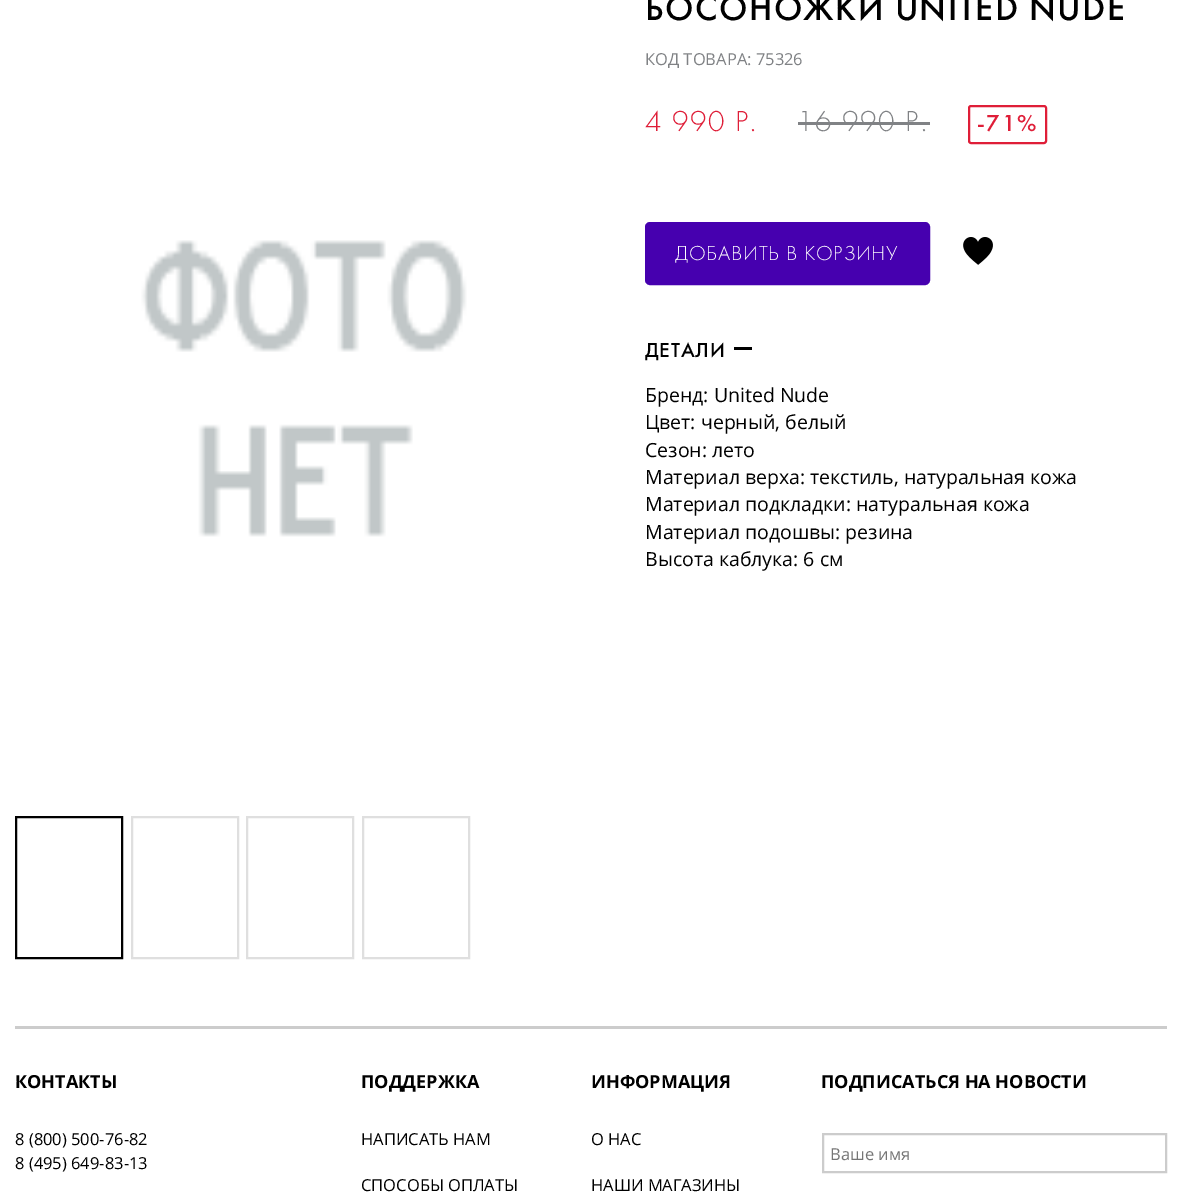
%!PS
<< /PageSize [1182 1198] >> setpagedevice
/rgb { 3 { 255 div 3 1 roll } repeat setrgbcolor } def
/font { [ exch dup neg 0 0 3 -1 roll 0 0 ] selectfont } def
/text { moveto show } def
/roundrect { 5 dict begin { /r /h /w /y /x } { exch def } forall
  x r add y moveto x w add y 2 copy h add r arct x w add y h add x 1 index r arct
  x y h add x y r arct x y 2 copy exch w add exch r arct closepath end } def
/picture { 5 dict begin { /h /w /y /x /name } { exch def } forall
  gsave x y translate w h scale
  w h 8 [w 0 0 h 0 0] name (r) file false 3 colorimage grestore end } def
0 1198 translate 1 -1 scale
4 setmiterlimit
255 255 255 rgb
0 0 1182 1198 rectfill
(img_01.rgb) 141 240 326 297 picture
0 0 0 rgb
2 setlinewidth
16 817 106 141 rectstroke
223 223 223 rgb
132 817 106 141 rectstroke
247 817 106 141 rectstroke
363 817 106 141 rectstroke
128 130 133 rgb
798 122 132 3 rectfill
223 30 56 rgb
969 106 77 37 2 roundrect stroke
70 0 175 rgb
646 223 283 61 4 roundrect gsave fill grestore
stroke
(img_02.rgb) 963 237 30 28 picture
0 0 0 rgb
734 347 18 3 rectfill
204 204 204 rgb
15 1026 1152 3 rectfill
823 1134 343 38 rectstroke
/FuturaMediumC-Medium 36 font
0 0 0 rgb
645 20 moveto 1.4 0 (БОСОНОЖКИ UNITED NUDE) ashow
/OpenSans-Regular 16.5 font
128 130 133 rgb
(КОД ТОВАРА: 75326) 645 65 text
/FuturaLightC-Light 30 font
223 30 56 rgb
645 131 moveto 1.75 0 (4 990 Р.) ashow
128 130 133 rgb
797 131 moveto 1.75 0 (16 990 Р.) ashow
/FuturaMediumC-Medium 24 font
223 30 56 rgb
977 131 moveto 1.75 0 (-71%) ashow
/FuturaLightC-Light 21 font
255 255 255 rgb
675 260 moveto 0.8 0 (ДОБАВИТЬ В КОРЗИНУ) ashow
/FuturaMediumC-Medium 21 font
0 0 0 rgb
645 357 moveto 0.8 0 (ДЕТАЛИ) ashow
/OpenSans-Regular 19.5 font
(Бренд: United Nude) 645 402 text
(Цвет: черный, белый) 645 429 text
(Сезон: лето) 645 457 text
(Материал верха: текстиль, натуральная кожа) 645 484 text
(Материал подкладки: натуральная кожа) 645 511 text
(Материал подошвы: резина) 645 539 text
(Высота каблука: 6 см) 645 566 text
/OpenSans-Bold 18 font
(КОНТАКТЫ) 15 1088 text
/OpenSans-Regular 16.5 font
(8 \(800\) 500-76-82) 15 1145 text
(8 \(495\) 649-83-13) 15 1169 text
/OpenSans-Bold 18 font
(ПОДДЕРЖКА) 361 1088 text
/OpenSans-Regular 16.5 font
(НАПИСАТЬ НАМ) 361 1145 text
(СПОСОБЫ ОПЛАТЫ) 361 1191 text
/OpenSans-Bold 18 font
(ИНФОРМАЦИЯ) 591 1088 text
/OpenSans-Regular 16.5 font
(О НАС) 591 1145 text
(НАШИ МАГАЗИНЫ) 591 1191 text
/OpenSans-Bold 18 font
(ПОДПИСАТЬСЯ НА НОВОСТИ) 821 1088 text
/OpenSans-Regular 16.5 font
117 117 117 rgb
(Ваше имя) 830 1160 text
showpage
